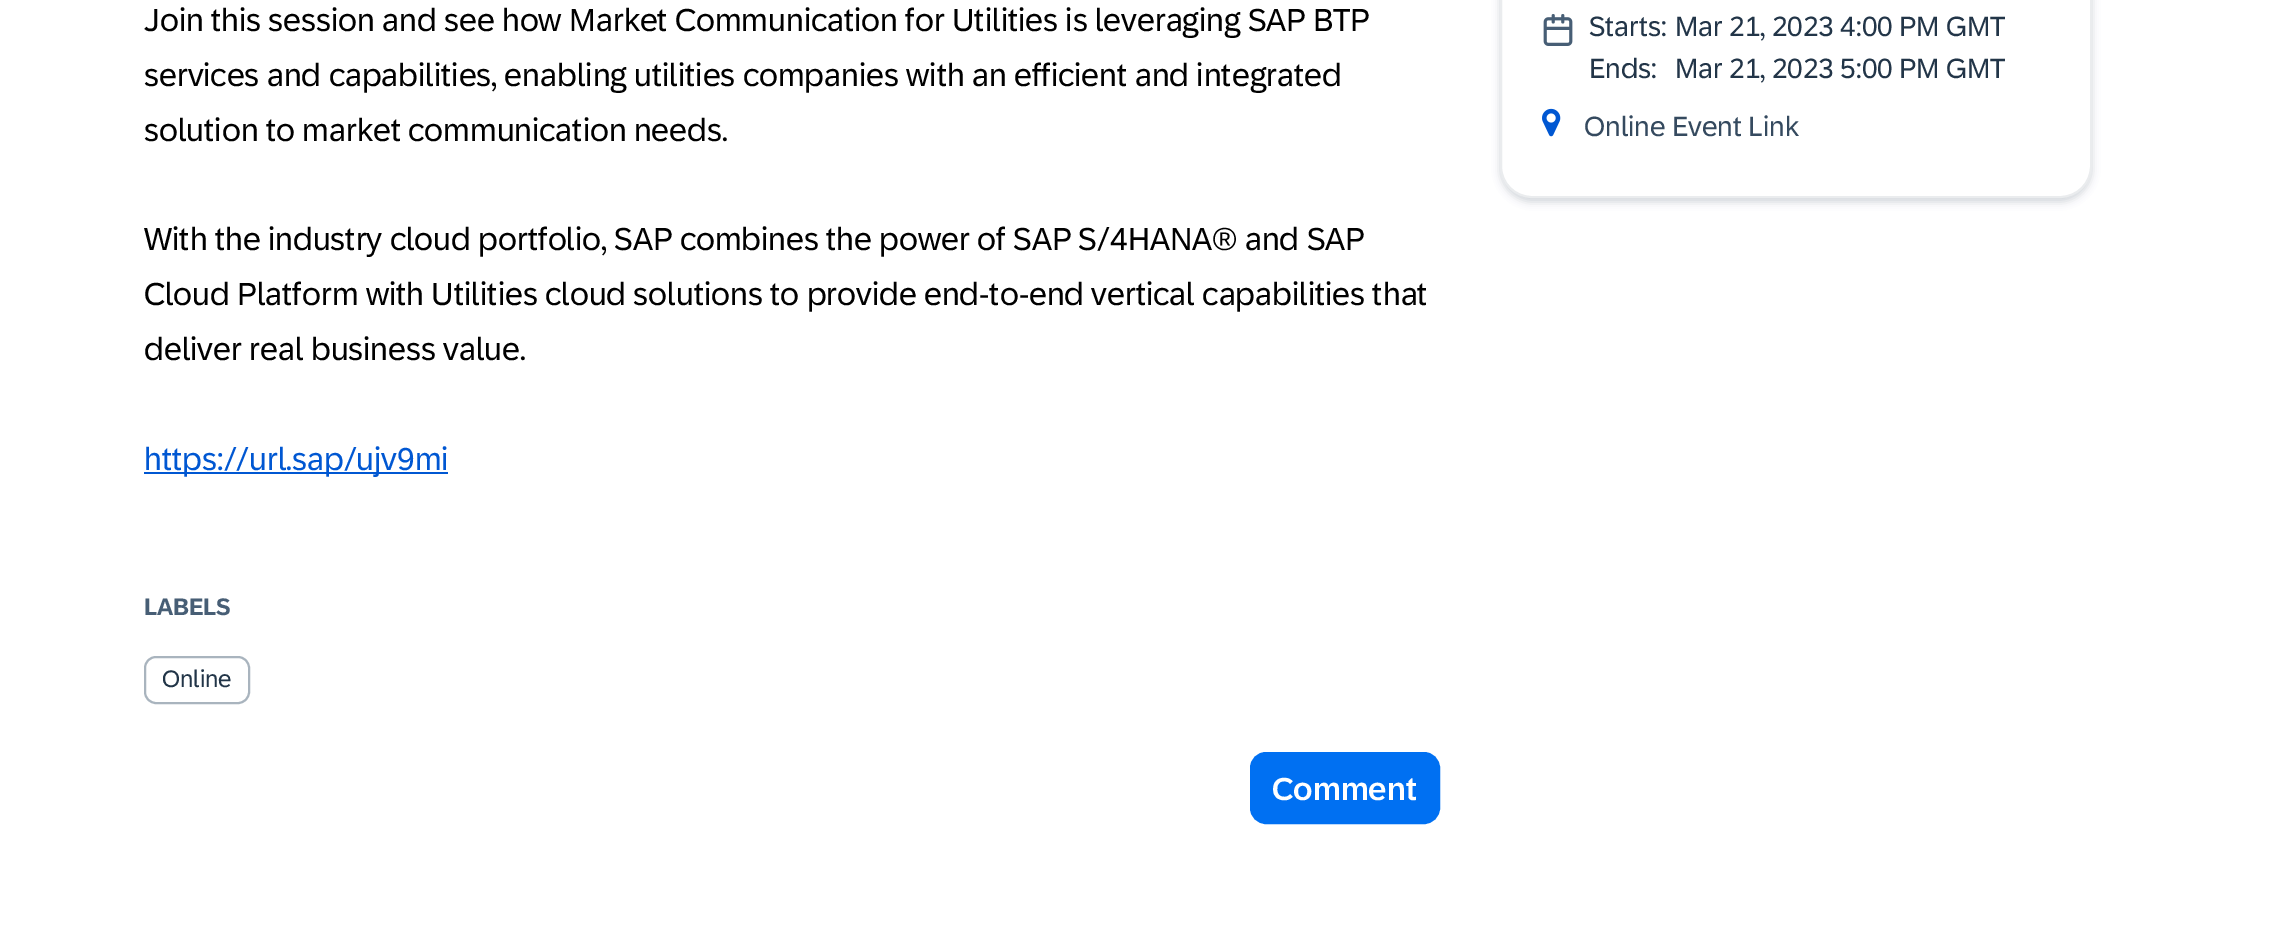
%!PS
<< /PageSize [2275 925] /PageUsesTransparency true >> setpagedevice
/rgb { 3 { 255 div 3 1 roll } repeat setrgbcolor } def
/font { [ exch dup neg 0 0 3 -1 roll 0 0 ] selectfont } def
/text { moveto show } def
/alpha { dup .setfillconstantalpha .setstrokeconstantalpha } def
/roundrect { 5 dict begin { /r /h /w /y /x } { exch def } forall
  x r add y moveto x w add y 2 copy h add r arct x w add y h add x 1 index r arct
  x y h add x y r arct x y 2 copy exch w add exch r arct closepath end } def
/shadow { 12 dict begin { /a /b /q /h /w /y /x } { exch def } forall gsave /was 0 def
  9 -2 -9 { dup b mul 4 div /e exch def 1 sub .425 mul 2.718 exch exp 1 add a .99 .min exch div /now exch def
    1 1 now sub 1 was sub div sub alpha /was now def
    w h .min e 2 mul add 0 gt { x e sub y e sub w e 2 mul add h e 2 mul add
      q e add b .6 mul add w h .min 2 div e add .min 0 .max roundrect fill } if } for grestore end } def
/picture { 5 dict begin { /h /w /y /x /name } { exch def } forall
  gsave x y translate w h scale
  w h 8 [w 0 0 h 0 0] name (r) file false 3 colorimage grestore end } def
0 .pushpdf14devicefilter
0 925 translate 1 -1 scale
4 setmiterlimit
255 255 255 rgb
0 0 2275 925 rectfill
0 87 210 rgb
144 472 304 2 rectfill
169 180 190 rgb
2 setlinewidth
145 657 104 46 11 roundrect stroke
0 112 242 rgb
1251 753 188 70 15 roundrect gsave fill grestore
stroke
34 54 73 rgb
1500 -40 592 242 32 4 0.2 shadow
255 255 255 rgb
1501 -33 590 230 31 roundrect gsave fill grestore
234 236 238 rgb
stroke
(img_01.rgb) 1543 14 30 32 picture
(img_02.rgb) 1542 108 19 29 picture
/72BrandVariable-Regular 32 font
0 0 0 rgb
(Join this session and see how Market Communication for Utilities is leveraging SAP BTP) 144 31 text
(services and capabilities, enabling utilities companies with an efficient and integrated) 144 86 text
(solution to market communication needs.) 144 141 text
(With the industry cloud portfolio, SAP combines the power of SAP S/4HANA® and SAP) 144 250 text
(Cloud Platform with Utilities cloud solutions to provide end-to-end vertical capabilities that) 144 305 text
(deliver real business value.) 144 360 text
0 87 210 rgb
(https://url.sap/ujv9mi) 144 470 text
/72BrandVariable-SemiBold 24 font
71 94 117 rgb
(LABELS) 144 615 text
/72BrandVariable-Regular 24 font
34 53 72 rgb
(Online) 162 687 text
/72BrandVariable-Medium 32 font
255 255 255 rgb
(Comment) 1272 800 text
/72BrandVariable-Regular 28 font
34 53 72 rgb
(Starts:) 1589 36 text
(Mar 21, 2023 4:00 PM GMT) 1675 36 text
(Ends:) 1589 78 text
(Mar 21, 2023 5:00 PM GMT) 1675 78 text
53 74 95 rgb
(Online Event Link) 1584 136 text
.poppdf14devicefilter showpage
